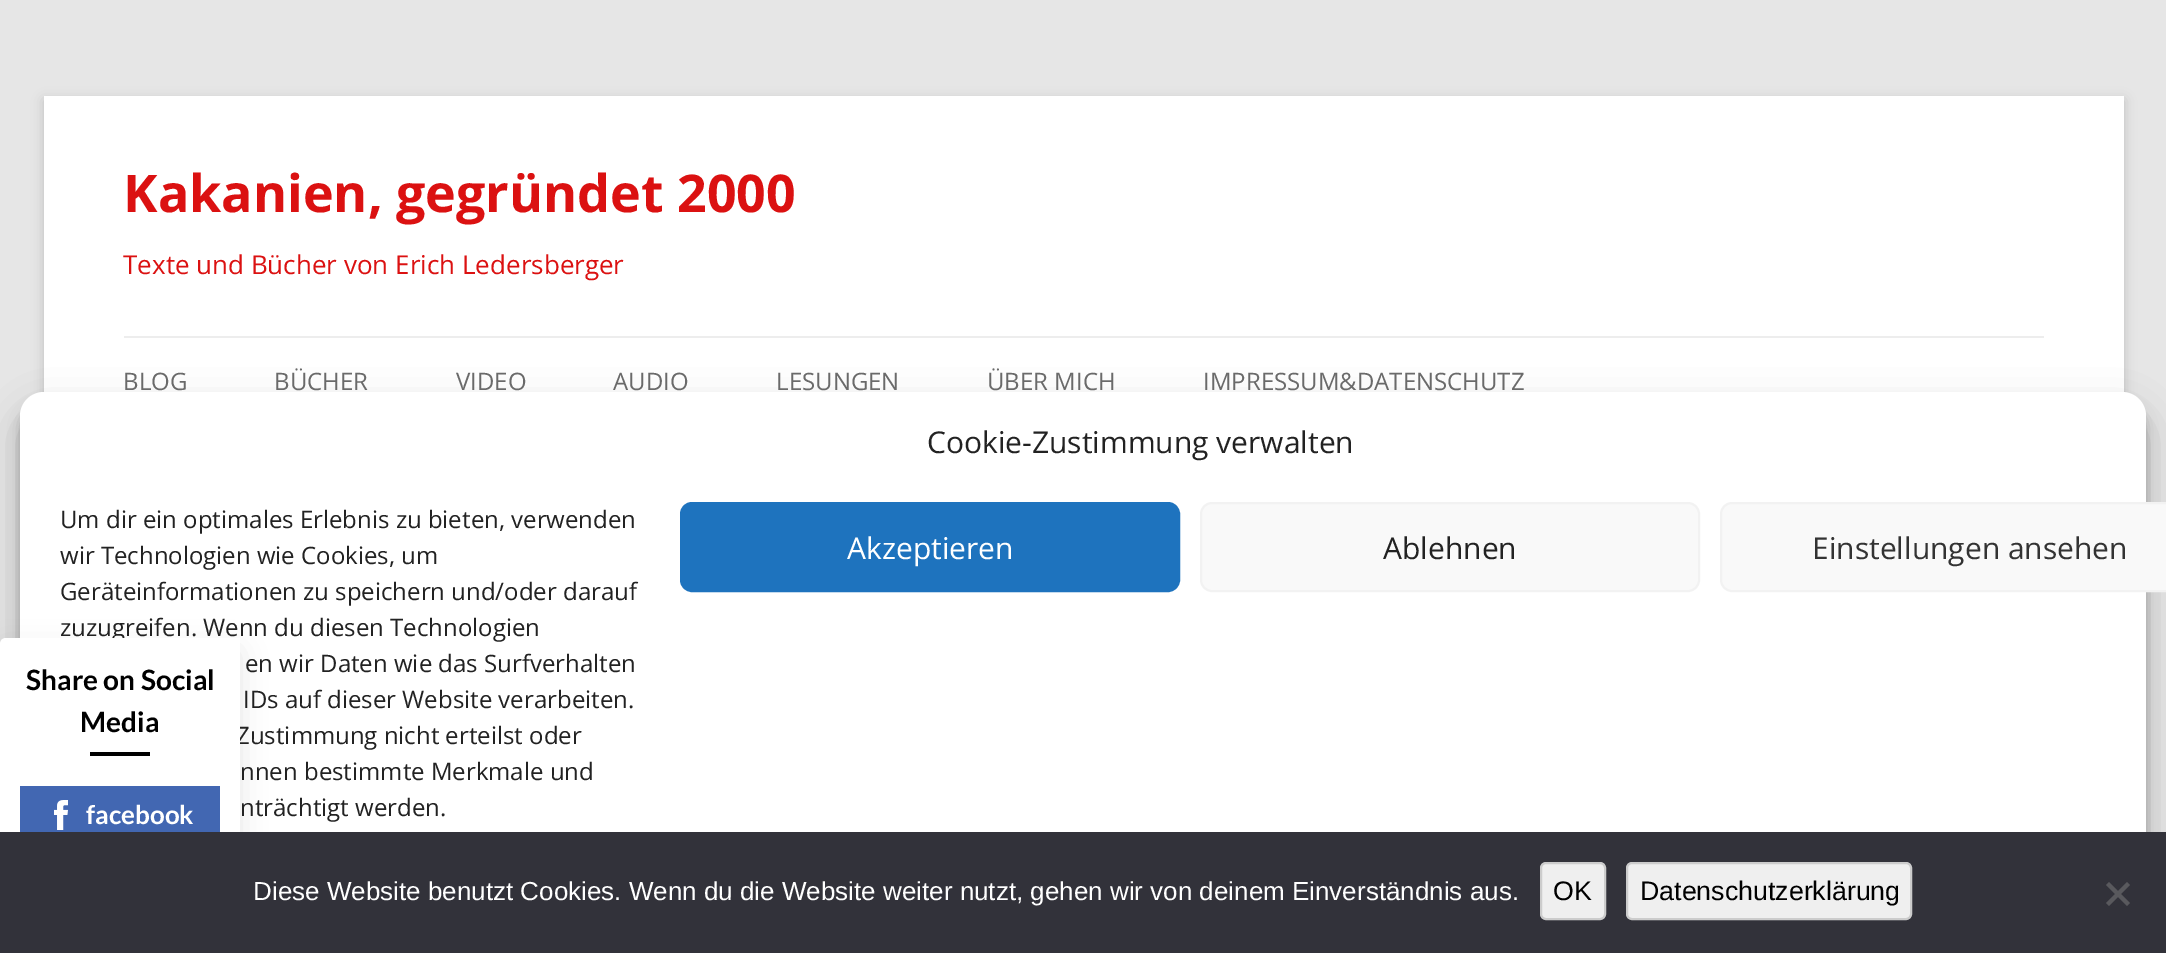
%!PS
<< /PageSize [2166 953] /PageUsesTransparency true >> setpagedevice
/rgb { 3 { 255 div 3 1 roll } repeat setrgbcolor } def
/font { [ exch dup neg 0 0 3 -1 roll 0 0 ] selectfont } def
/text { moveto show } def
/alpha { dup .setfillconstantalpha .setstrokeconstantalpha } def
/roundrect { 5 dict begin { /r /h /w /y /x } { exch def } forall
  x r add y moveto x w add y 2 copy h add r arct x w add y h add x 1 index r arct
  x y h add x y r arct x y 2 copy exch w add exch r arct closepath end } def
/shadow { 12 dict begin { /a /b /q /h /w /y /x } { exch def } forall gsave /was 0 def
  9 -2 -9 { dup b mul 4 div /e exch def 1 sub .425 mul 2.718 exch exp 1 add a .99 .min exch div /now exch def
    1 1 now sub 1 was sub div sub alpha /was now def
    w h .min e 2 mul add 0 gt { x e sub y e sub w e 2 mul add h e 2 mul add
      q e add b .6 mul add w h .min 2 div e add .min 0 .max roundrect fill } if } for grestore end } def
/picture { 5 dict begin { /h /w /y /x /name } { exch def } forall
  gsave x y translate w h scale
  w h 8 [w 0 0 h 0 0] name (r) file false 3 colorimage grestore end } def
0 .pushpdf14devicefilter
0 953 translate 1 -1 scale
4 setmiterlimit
230 230 230 rgb
0 0 2166 953 rectfill
100 100 100 rgb
44 100 2080 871 0 6 0.3 shadow
255 255 255 rgb
44 96 2080 297 rectfill
237 237 237 rgb
124 336 1920 2 rectfill
0 0 0 rgb
20 404 2126 542 24 6 0.23 shadow
20 412 2126 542 24 20 0.19 shadow
255 255 255 rgb
20 392 2126 542 24 roundrect fill
30 115 190 rgb
681 503 498 88 11 roundrect gsave fill grestore
2 setlinewidth
stroke
249 249 249 rgb
1201 503 498 88 11 roundrect gsave fill grestore
242 242 242 rgb
stroke
249 249 249 rgb
1721 503 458 88 11 roundrect gsave fill grestore
242 242 242 rgb
stroke
0 0 0 rgb
0 648 240 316 6 13 0.1 shadow
/OpenSans-Bold 52 font
219 17 17 rgb
(Kakanien, gegründet 2000) 123 212 text
/OpenSans-Regular 26 font
(Texte und Bücher von Erich Ledersberger) 123 274 text
/OpenSans-Regular 24 font
106 106 106 rgb
(BLOG) 123 390 text
(BÜCHER) 274 390 text
(VIDEO) 456 390 text
(AUDIO) 613 390 text
(LESUNGEN) 776 390 text
(ÜBER MICH) 987 390 text
(IMPRESSUM&DATENSCHUTZ) 1203 390 text
/OpenSans-Regular 30 font
34 34 34 rgb
(Cookie-Zustimmung verwalten) 927 453 text
/OpenSans-Regular 24 font
(Um dir ein optimales Erlebnis zu bieten, verwenden) 60 528 text
(wir Technologien wie Cookies, um) 60 564 text
(Geräteinformationen zu speichern und/oder darauf) 60 600 text
(zuzugreifen. Wenn du diesen Technologien) 60 636 text
(en wir Daten wie das Surfverhalten) 245 672 text
(IDs auf dieser Website verarbeiten.) 243 708 text
(Zustimmung nicht erteilst oder) 236 744 text
(nnen bestimmte Merkmale und) 240 780 text
(nträchtigt werden.) 240 816 text
/OpenSans-Regular 30 font
255 255 255 rgb
(Akzeptieren) 847 559 text
34 34 34 rgb
(Ablehnen) 1383 559 text
51 51 51 rgb
(Einstellungen ansehen) 1812 559 text
255 255 255 rgb
6 638 moveto 234 0 rlineto 0 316 rlineto -234 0 rlineto -3.5 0 -6 -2.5 -6 -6 rcurveto 0 -304 rlineto 0 -3.5 2.5 -6 6 -6 rcurveto closepath fill
/Lato-Bold 28 font
0 0 0 rgb
(Share on Social) 26 690 text
(Media) 80 732 text
90 752 60 4 rectfill
66 103 178 rgb
20 786 200 46 rectfill
(img_01.rgb) 54 800 14 30 picture
/Lato-Bold 26 font
255 255 255 rgb
(facebook) 86 824 text
50 50 58 rgb
0 832 2166 121 rectfill
/LiberationSans-Regular 26 font
255 255 255 rgb
(Diese Website benutzt Cookies. Wenn du die Website weiter nutzt, gehen wir von deinem Einverständnis aus.) 253 900 text
239 239 239 rgb
1541 863 64 56 5 roundrect gsave fill grestore
204 204 204 rgb
stroke
/LiberationSans-Regular 26.75 font
0 0 0 rgb
(OK) 1553 900 text
239 239 239 rgb
1627 863 284 56 5 roundrect gsave fill grestore
204 204 204 rgb
stroke
0 0 0 rgb
(Datenschutzerklärung) 1640 900 text
89 89 93 rgb
2127 882 moveto 3 3 rlineto -21 21 rlineto -3 -3 rlineto closepath fill
2106 885 moveto 3 -3 rlineto 21 21 rlineto -3 3 rlineto closepath fill
.poppdf14devicefilter showpage
